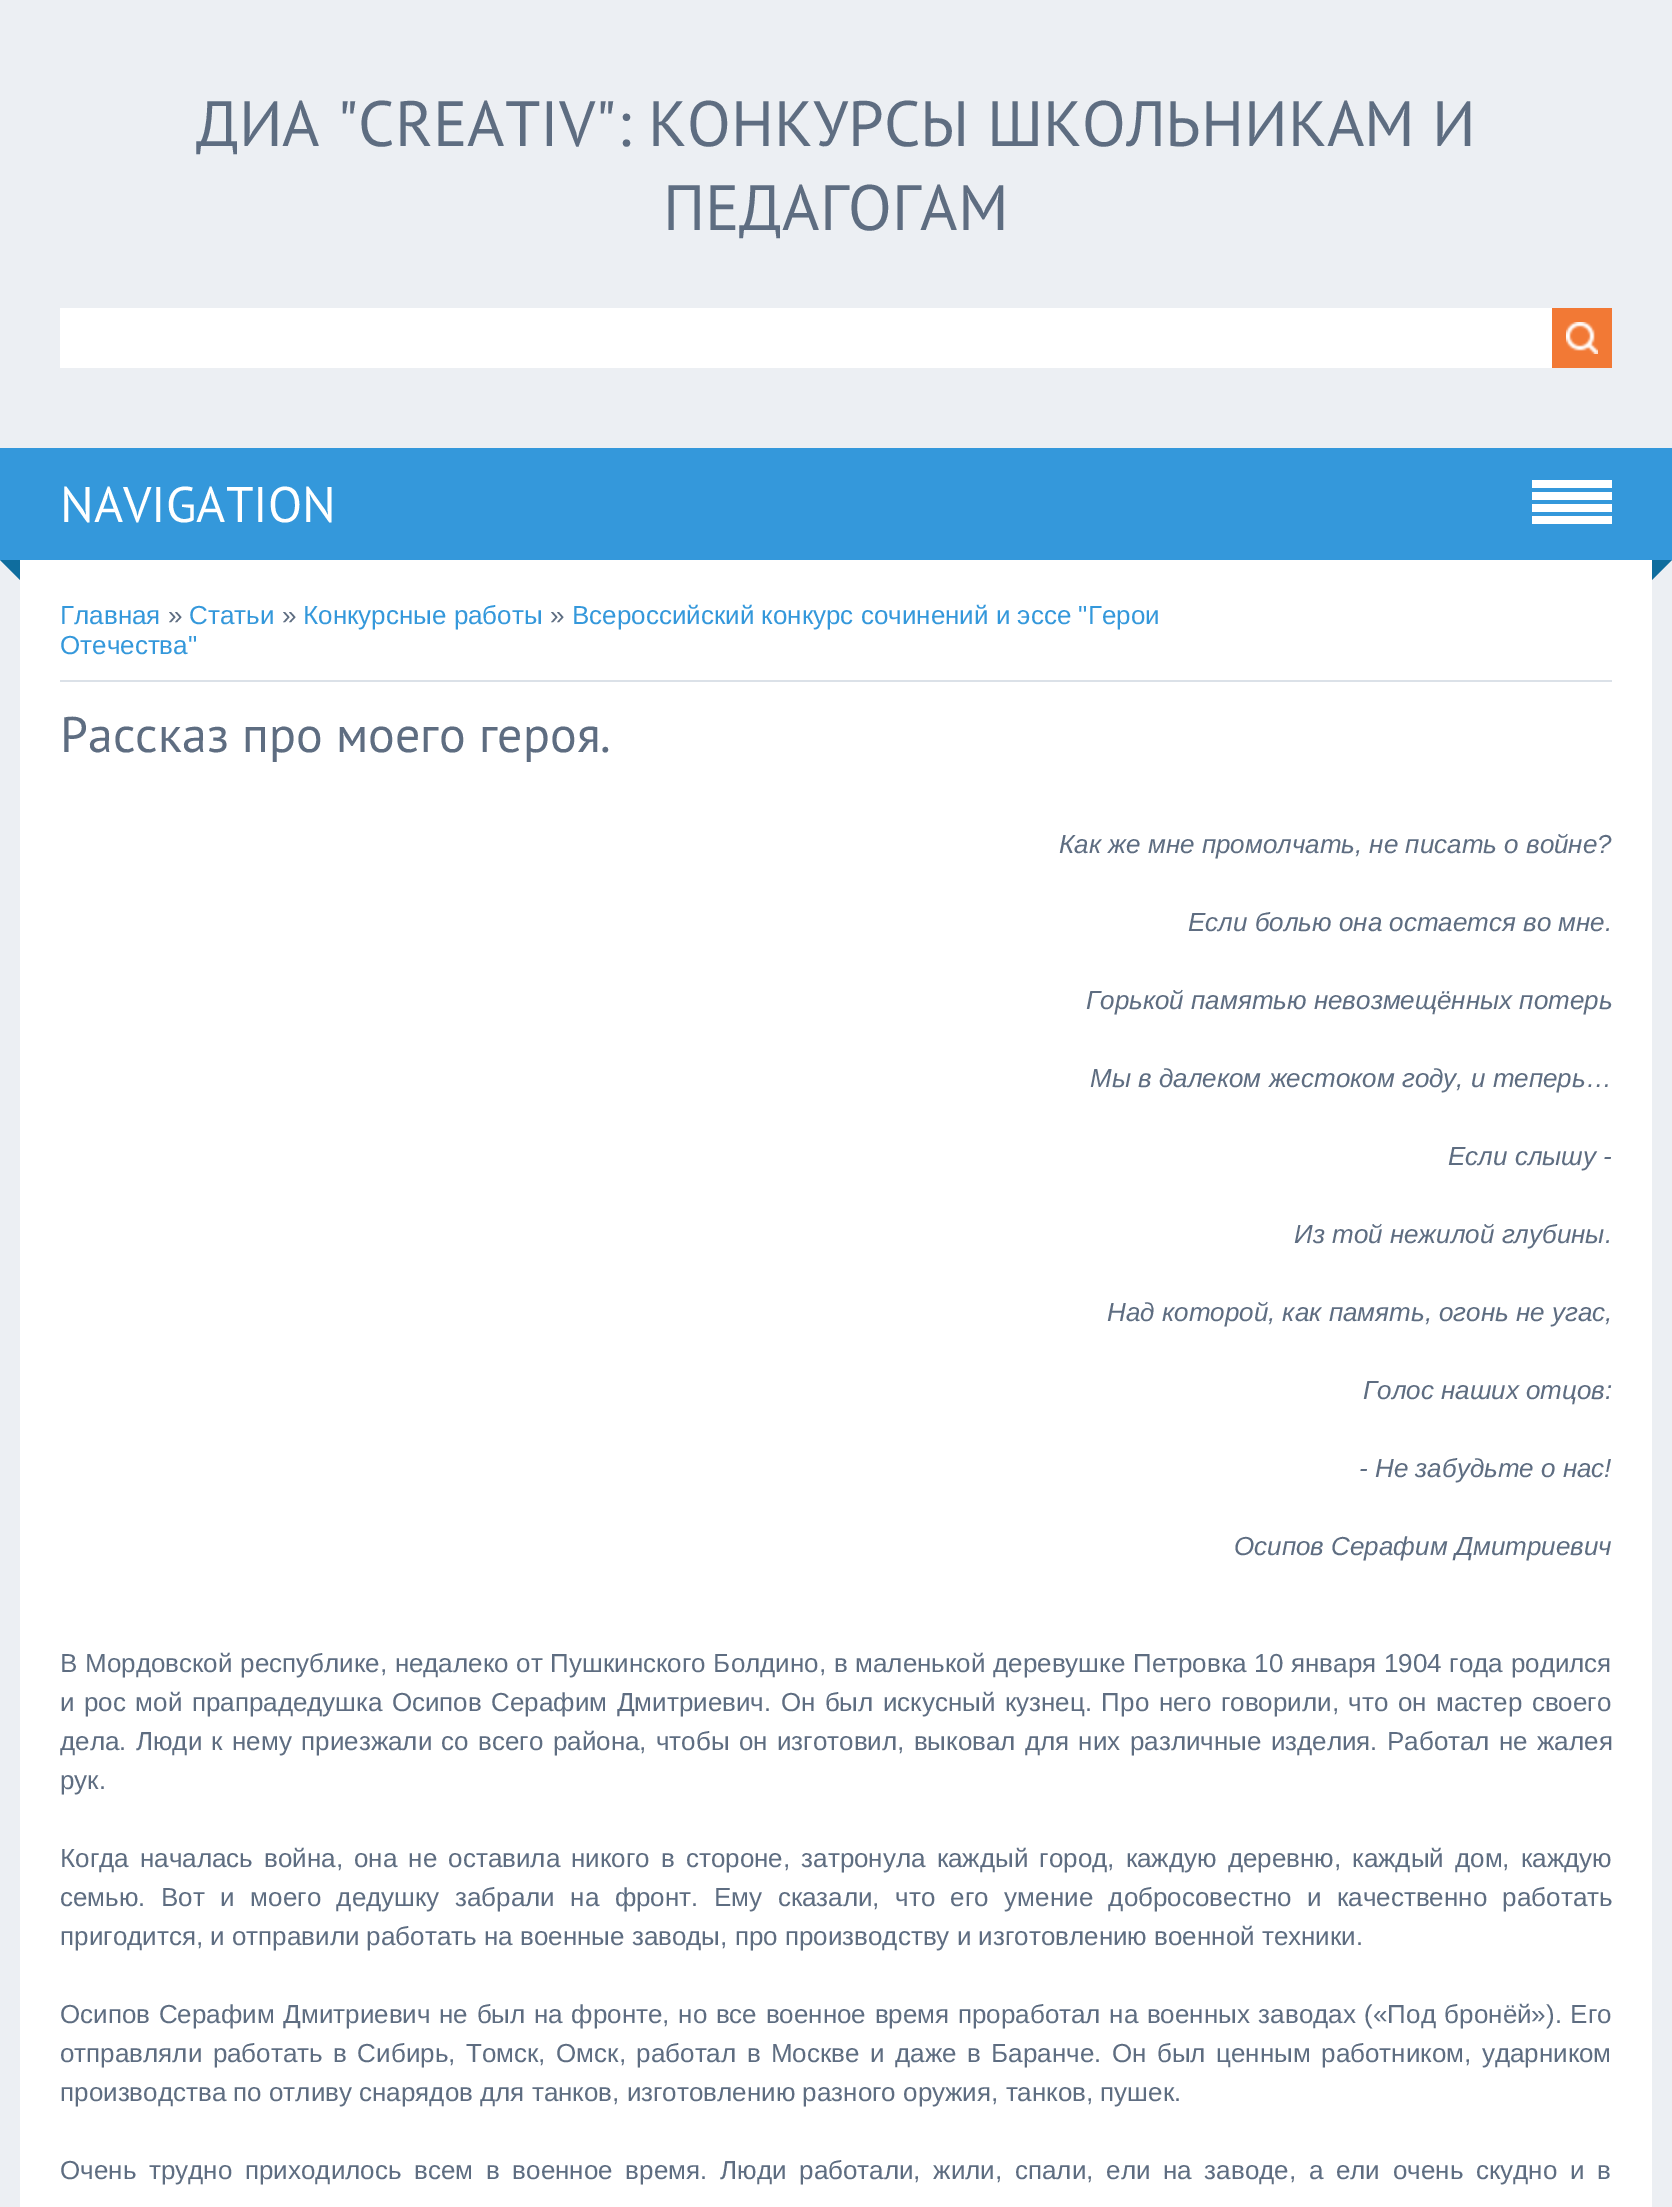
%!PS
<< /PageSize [1672 2207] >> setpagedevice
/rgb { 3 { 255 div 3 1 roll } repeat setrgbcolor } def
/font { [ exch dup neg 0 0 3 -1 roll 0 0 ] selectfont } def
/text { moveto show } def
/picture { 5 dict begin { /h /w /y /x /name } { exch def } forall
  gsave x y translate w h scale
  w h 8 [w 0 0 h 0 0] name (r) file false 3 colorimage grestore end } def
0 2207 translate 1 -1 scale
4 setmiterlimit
236 239 243 rgb
0 0 1672 2207 rectfill
255 255 255 rgb
60 308 1492 60 rectfill
242 121 53 rgb
1552 308 60 60 rectfill
(img_01.rgb) 1566 322 32 32 picture
52 152 219 rgb
0 448 1672 112 rectfill
255 255 255 rgb
1532 480 80 8 rectfill
1532 492 80 8 rectfill
1532 504 80 8 rectfill
1532 516 80 8 rectfill
15 109 158 rgb
0 560 moveto 20 0 rlineto 0 20 rlineto closepath fill
1652 560 moveto 20 0 rlineto -20 20 rlineto closepath fill
255 255 255 rgb
20 560 1632 1647 rectfill
219 225 232 rgb
60 680 1552 2 rectfill
/PTSans-Regular 64 font
94 109 129 rgb
(ДИА "CREATIV": КОНКУРСЫ ШКОЛЬНИКАМ И) 196 146 text
(ПЕДАГОГАМ) 663 230 text
/PTSans-Regular 50 font
255 255 255 rgb
(NAVIGATION) 60 522 text
/LiberationSans-Regular 26 font
52 152 219 rgb
(Главная) 60 624 text
94 109 129 rgb
(») 168 624 text
52 152 219 rgb
(Статьи) 189 624 text
94 109 129 rgb
(») 282 624 text
52 152 219 rgb
(Конкурсные работы) 303 624 text
94 109 129 rgb
(») 550 624 text
52 152 219 rgb
(Всероссийский конкурс сочинений и эссе "Герои) 572 624 text
(Отечества") 60 654 text
/PTSans-Regular 50 font
94 109 129 rgb
(Рассказ про моего героя.) 60 752 text
/LiberationSans-Italic 26 font
(Как же мне промолчать, не писать о войне?) 1059 853 text
(Если болью она остается во мне.) 1188 931 text
(Горькой памятью невозмещённых потерь) 1086 1009 text
(Мы в далеком жестоком году, и теперь…) 1090 1087 text
(Если слышу -) 1448 1165 text
(Из той нежилой глубины.) 1294 1243 text
(Над которой, как память, огонь не угас,) 1107 1321 text
(Голос наших отцов:) 1363 1399 text
(- Не забудьте о нас!) 1359 1477 text
(Осипов Серафим Дмитриевич) 1234 1555 text
/LiberationSans-Regular 26 font
60 1672 moveto 0.5 0 32 (В Мордовской республике, недалеко от Пушкинского Болдино, в маленькой деревушке Петровка 10 января 1904 года родился) widthshow
60 1711 moveto 2.25 0 32 (и рос мой прапрадедушка Осипов Серафим Дмитриевич. Он был искусный кузнец. Про него говорили, что он мастер своего) widthshow
60 1750 moveto 2.1 0 32 (дела. Люди к нему приезжали со всего района, чтобы он изготовил, выковал для них различные изделия. Работал не жалея) widthshow
(рук.) 60 1789 text
60 1867 moveto 3.9 0 32 (Когда началась война, она не оставила никого в стороне, затронула каждый город, каждую деревню, каждый дом, каждую) widthshow
60 1906 moveto 8.25 0 32 (семью. Вот и моего дедушку забрали на фронт. Ему сказали, что его умение добросовестно и качественно работать) widthshow
(пригодится, и отправили работать на военные заводы, про производству и изготовлению военной техники.) 60 1945 text
60 2023 moveto 1.4 0 32 (Осипов Серафим Дмитриевич не был на фронте, но все военное время проработал на военных заводах \(«Под бронёй»\). Его) widthshow
60 2062 moveto 3.25 0 32 (отправляли работать в Сибирь, Томск, Омск, работал в Москве и даже в Баранче. Он был ценным работником, ударником) widthshow
(производства по отливу снарядов для танков, изготовлению разного оружия, танков, пушек.) 60 2101 text
60 2179 moveto 5.5 0 32 (Очень трудно приходилось всем в военное время. Люди работали, жили, спали, ели на заводе, а ели очень скудно и в) widthshow
showpage
